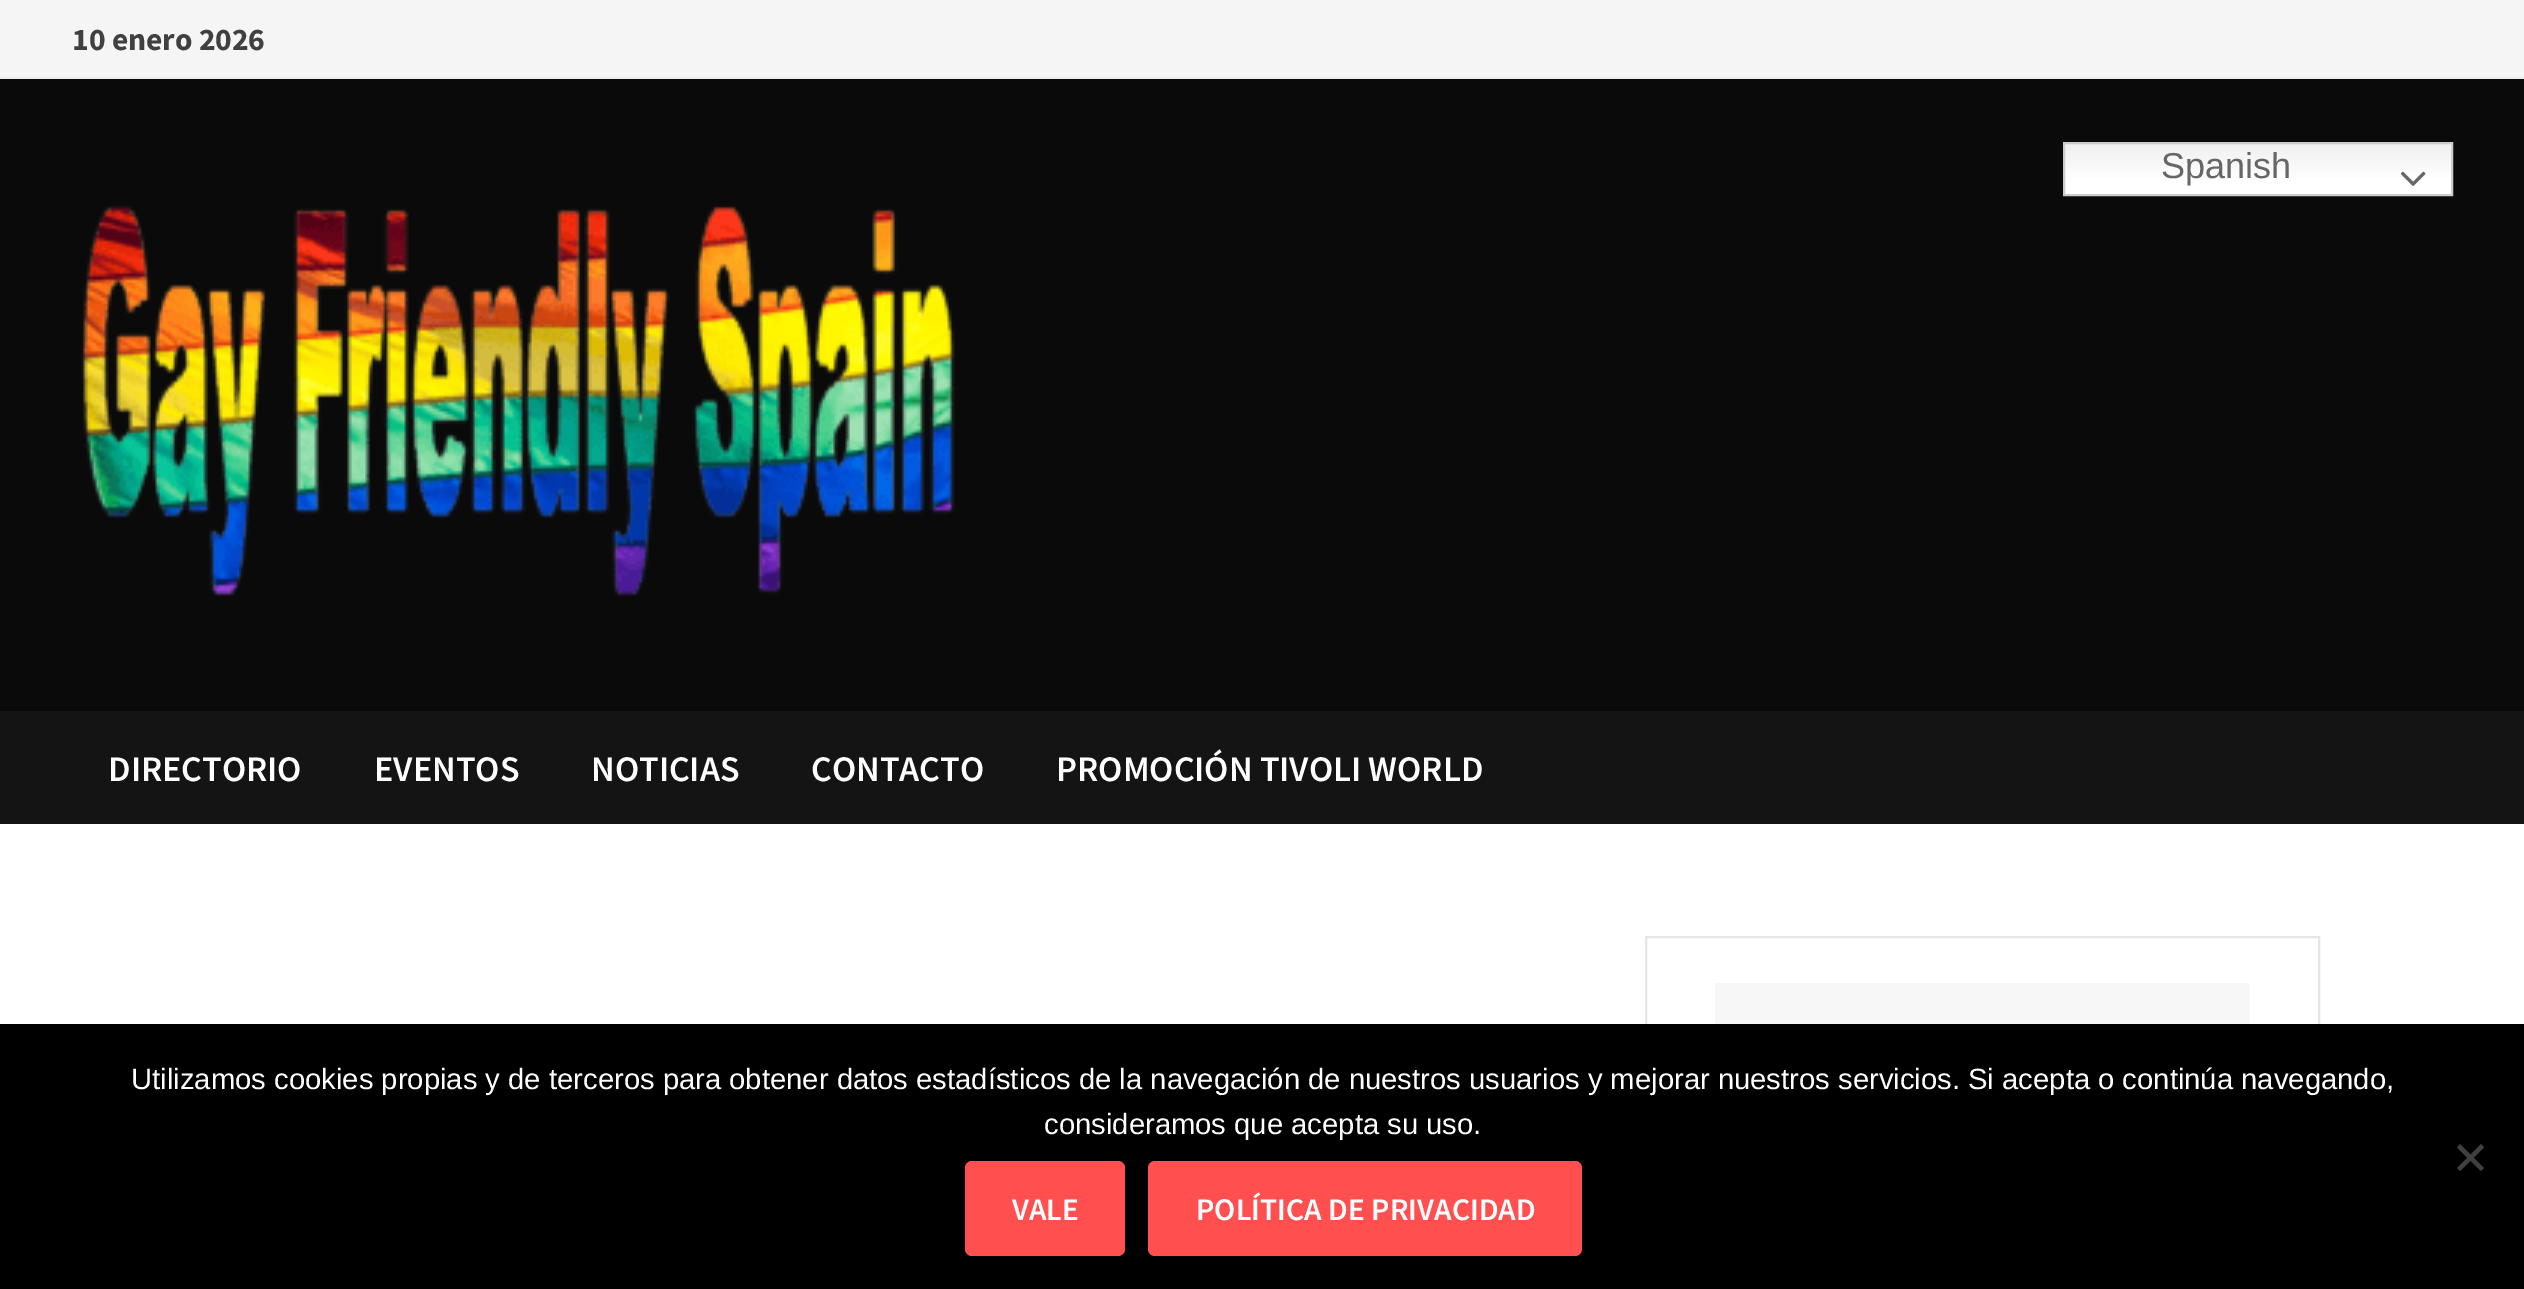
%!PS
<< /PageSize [2524 1289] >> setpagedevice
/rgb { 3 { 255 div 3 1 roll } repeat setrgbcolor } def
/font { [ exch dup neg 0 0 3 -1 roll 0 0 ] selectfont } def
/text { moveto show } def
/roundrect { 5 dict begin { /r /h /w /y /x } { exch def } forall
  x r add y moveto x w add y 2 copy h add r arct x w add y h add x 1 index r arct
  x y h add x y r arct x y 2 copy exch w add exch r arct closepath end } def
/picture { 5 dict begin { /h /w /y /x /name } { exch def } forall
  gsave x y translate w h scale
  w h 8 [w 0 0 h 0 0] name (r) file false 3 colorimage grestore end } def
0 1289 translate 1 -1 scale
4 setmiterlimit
255 255 255 rgb
0 0 2524 1289 rectfill
245 245 245 rgb
0 0 2524 77 rectfill
238 238 238 rgb
0 77 2524 2 rectfill
10 10 10 rgb
0 79 2524 632 rectfill
gsave 2065 144 moveto 386 0 rlineto 0 50 rlineto -386 0 rlineto closepath clip newpath
<< /ShadingType 2 /ColorSpace /DeviceRGB /Coords [2258 142 2258 196] /Extend [true true] /Function << /FunctionType 3 /Domain [0 1] /Functions [<< /FunctionType 2 /Domain [0 1] /C0 [0.937 0.937 0.937] /C1 [1 1 1] /N 1 >> << /FunctionType 2 /Domain [0 1] /C0 [1 1 1] /C1 [1 1 1] /N 1 >>] /Bounds [0.7] /Encode [0 1 0 1] >> >> shfill grestore
204 204 204 rgb
2 setlinewidth
2064 143 388 52 rectstroke
(img_01.rgb) 2401 171 25 15 picture
(img_02.rgb) 81 205 874 392 picture
20 20 20 rgb
0 711 2524 113 rectfill
230 230 230 rgb
1646 937 673 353 rectstroke
247 247 247 rgb
1715 983 535 41 rectfill
0 0 0 rgb
0 1024 2524 265 rectfill
64 64 64 rgb
2481 1144 moveto 3 3.5 rlineto -24 23.5 rlineto -3 -3 rlineto closepath fill
2457 1147.5 moveto 3 -3.5 rlineto 24 24 rlineto -3 3 rlineto closepath fill
255 79 79 rgb
965 1161 160 95 7 roundrect fill
1148 1161 434 95 7 roundrect fill
/SourceSansPro-Bold 31.5 font
64 64 64 rgb
(10 enero 2026) 72 50 text
/LiberationSans-Regular 36 font
102 102 102 rgb
(Spanish) 2161 178 text
/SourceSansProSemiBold-SemiBold 36 font
255 255 255 rgb
(DIRECTORIO) 108 781 text
(EVENTOS) 374 781 text
(NOTICIAS) 591 781 text
(CONTACTO) 811 781 text
(PROMOCIÓN TIVOLI WORLD) 1056 781 text
/LiberationSans-Regular 29.25 font
(Utilizamos cookies propias y de terceros para obtener datos estadísticos de la navegación de nuestros usuarios y mejorar nuestros servicios. Si acepta o continúa navegando,) 131 1089 text
(consideramos que acepta su uso.) 1044 1134 text
/SourceSansProSemiBold-SemiBold 31.5 font
(VALE) 1012 1220 text
(POLÍTICA DE PRIVACIDAD) 1196 1220 text
showpage
